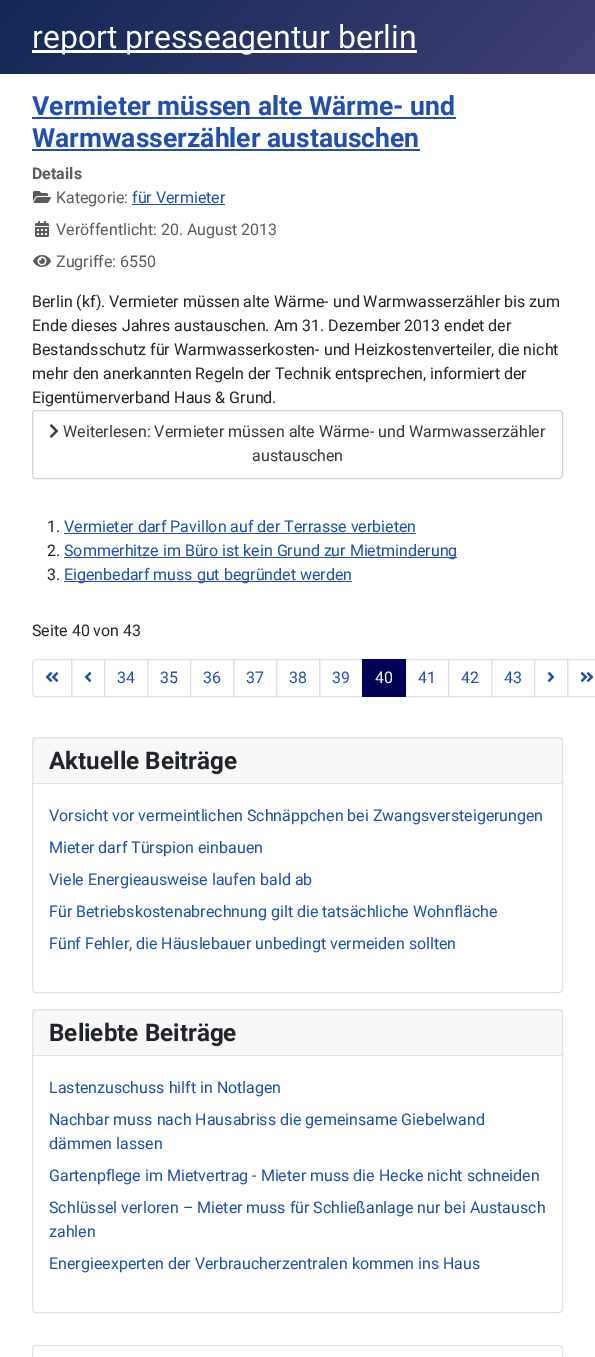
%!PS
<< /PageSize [595 1357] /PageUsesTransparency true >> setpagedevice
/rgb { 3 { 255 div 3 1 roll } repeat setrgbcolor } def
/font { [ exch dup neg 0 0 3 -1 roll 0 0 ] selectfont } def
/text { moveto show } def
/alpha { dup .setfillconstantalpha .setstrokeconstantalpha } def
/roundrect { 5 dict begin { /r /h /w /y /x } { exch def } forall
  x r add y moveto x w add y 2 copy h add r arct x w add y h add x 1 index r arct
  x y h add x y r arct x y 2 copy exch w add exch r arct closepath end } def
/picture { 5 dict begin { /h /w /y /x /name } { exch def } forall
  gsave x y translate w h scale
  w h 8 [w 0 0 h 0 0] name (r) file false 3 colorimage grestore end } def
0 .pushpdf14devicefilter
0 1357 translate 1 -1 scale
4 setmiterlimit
255 255 255 rgb
0 0 595 1357 rectfill
gsave 0 0 moveto 595 0 rlineto 0 74 rlineto -595 0 rlineto closepath clip newpath
<< /ShadingType 2 /ColorSpace /DeviceRGB /Coords [130 -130 465 204] /Extend [true true] /Function << /FunctionType 2 /Domain [0 1] /C0 [0.067 0.157 0.333] /C1 [0.259 0.251 0.467] /N 1 >> >> shfill grestore
32 50 385 3 rectfill
34 79 170 rgb
32 117 424 2 rectfill
32 149 388 2 rectfill
(img_01.rgb) 33 191 18 12 picture
132 204 93 1 rectfill
(img_02.rgb) 35 221 14 16 picture
(img_03.rgb) 33 255 18 12 picture
206 212 218 rgb
32.5 410.5 530 68 3.5 roundrect stroke
(img_04.rgb) 49 424 10 14 picture
34 79 170 rgb
64 533 352 1 rectfill
64 557 393 1 rectfill
64 581 288 1 rectfill
223 227 231 rgb
36 659.5 moveto 35.5 0 rlineto 0 37 rlineto -35.5 0 rlineto -2 0 -3.5 -1.5 -3.5 -3.5 rcurveto 0 -30 rlineto 0 -2 1.5 -3.5 3.5 -3.5 rcurveto closepath stroke
(img_05.rgb) 45 672 14 10 picture
71.5 659.5 33 37 rectstroke
(img_06.rgb) 84 672 8 10 picture
104.5 659.5 43 37 rectstroke
147.5 659.5 43 37 rectstroke
190.5 659.5 43 37 rectstroke
233.5 659.5 43 37 rectstroke
276.5 659.5 43 37 rectstroke
319.5 659.5 43 37 rectstroke
405.5 659.5 43 37 rectstroke
1 1 86 rgb
362 659 44 38 rectfill
223 227 231 rgb
448.5 659.5 43 37 rectstroke
491.5 659.5 43 37 rectstroke
534.5 659.5 33 37 rectstroke
(img_07.rgb) 547 672 8 10 picture
567.5 659.5 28 37 rectstroke
(img_08.rgb) 580 672 14 10 picture
32.5 737.5 530 255 3.5 roundrect stroke
0.03 alpha
34 38 42 rgb
33 738 529 45 rectfill
1 alpha
223 227 231 rgb
33 783 529 1 rectfill
32.5 1009.5 530 303 3.5 roundrect stroke
0.03 alpha
34 38 42 rgb
33 1010 529 45 rectfill
1 alpha
223 227 231 rgb
33 1055 529 1 rectfill
32.5 1345.5 530 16 3.5 roundrect stroke
/Roboto-Regular 32 font
255 255 255 rgb
(report presseagentur berlin) 32 48 text
/Roboto-Bold 26.5 font
34 79 170 rgb
(Vermieter müssen alte Wärme- und) 32 115 text
(Warmwasserzähler austauschen) 32 147 text
/Roboto-Bold 16 font
89 92 95 rgb
(Details) 32 179 text
/Roboto-Regular 16 font
(Kategorie:) 56 203 text
34 79 170 rgb
(für Vermieter) 132 203 text
89 92 95 rgb
(Veröffentlicht: 20. August 2013) 56 235 text
(Zugriffe: 6550) 56 267 text
34 38 42 rgb
(Berlin \(kf\). Vermieter müssen alte Wärme- und Warmwasserzähler bis zum) 32 307 text
(Ende dieses Jahres austauschen. Am 31. Dezember 2013 endet der) 32 331 text
(Bestandsschutz für Warmwasserkosten- und Heizkostenverteiler, die nicht) 32 355 text
(mehr den anerkannten Regeln der Technik entsprechen, informiert der) 32 379 text
(Eigentümerverband Haus & Grund.) 32 403 text
53 59 65 rgb
(Weiterlesen: Vermieter müssen alte Wärme- und Warmwasserzähler) 63 437 text
(austauschen) 252 461 text
34 38 42 rgb
(1.) 47 532 text
34 79 170 rgb
(Vermieter darf Pavillon auf der Terrasse verbieten) 64 532 text
34 38 42 rgb
(2.) 47 556 text
34 79 170 rgb
(Sommerhitze im Büro ist kein Grund zur Mietminderung) 64 556 text
34 38 42 rgb
(3.) 47 580 text
34 79 170 rgb
(Eigenbedarf muss gut begründet werden) 64 580 text
34 38 42 rgb
(Seite 40 von 43) 32 636 text
34 79 170 rgb
(34) 117 683 text
(35) 160 683 text
(36) 203 683 text
(37) 246 683 text
(38) 289 683 text
(39) 332 683 text
255 255 255 rgb
(40) 375 683 text
34 79 170 rgb
(41) 418 683 text
(42) 461 683 text
(43) 504 683 text
/Roboto-Bold 24.25 font
34 38 42 rgb
(Aktuelle Beiträge) 49 769 text
/Roboto-Regular 16 font
34 79 170 rgb
(Vorsicht vor vermeintlichen Schnäppchen bei Zwangsversteigerungen) 49 821 text
(Mieter darf Türspion einbauen) 49 853 text
(Viele Energieausweise laufen bald ab) 49 885 text
(Für Betriebskostenabrechnung gilt die tatsächliche Wohnfläche) 49 917 text
(Fünf Fehler, die Häuslebauer unbedingt vermeiden sollten) 49 949 text
/Roboto-Bold 24.25 font
34 38 42 rgb
(Beliebte Beiträge) 49 1041 text
/Roboto-Regular 16 font
34 79 170 rgb
(Lastenzuschuss hilft in Notlagen) 49 1093 text
(Nachbar muss nach Hausabriss die gemeinsame Giebelwand) 49 1125 text
(dämmen lassen) 49 1149 text
(Gartenpflege im Mietvertrag - Mieter muss die Hecke nicht schneiden) 49 1181 text
(Schlüssel verloren – Mieter muss für Schließanlage nur bei Austausch) 49 1213 text
(zahlen) 49 1237 text
(Energieexperten der Verbraucherzentralen kommen ins Haus) 49 1269 text
.poppdf14devicefilter showpage
